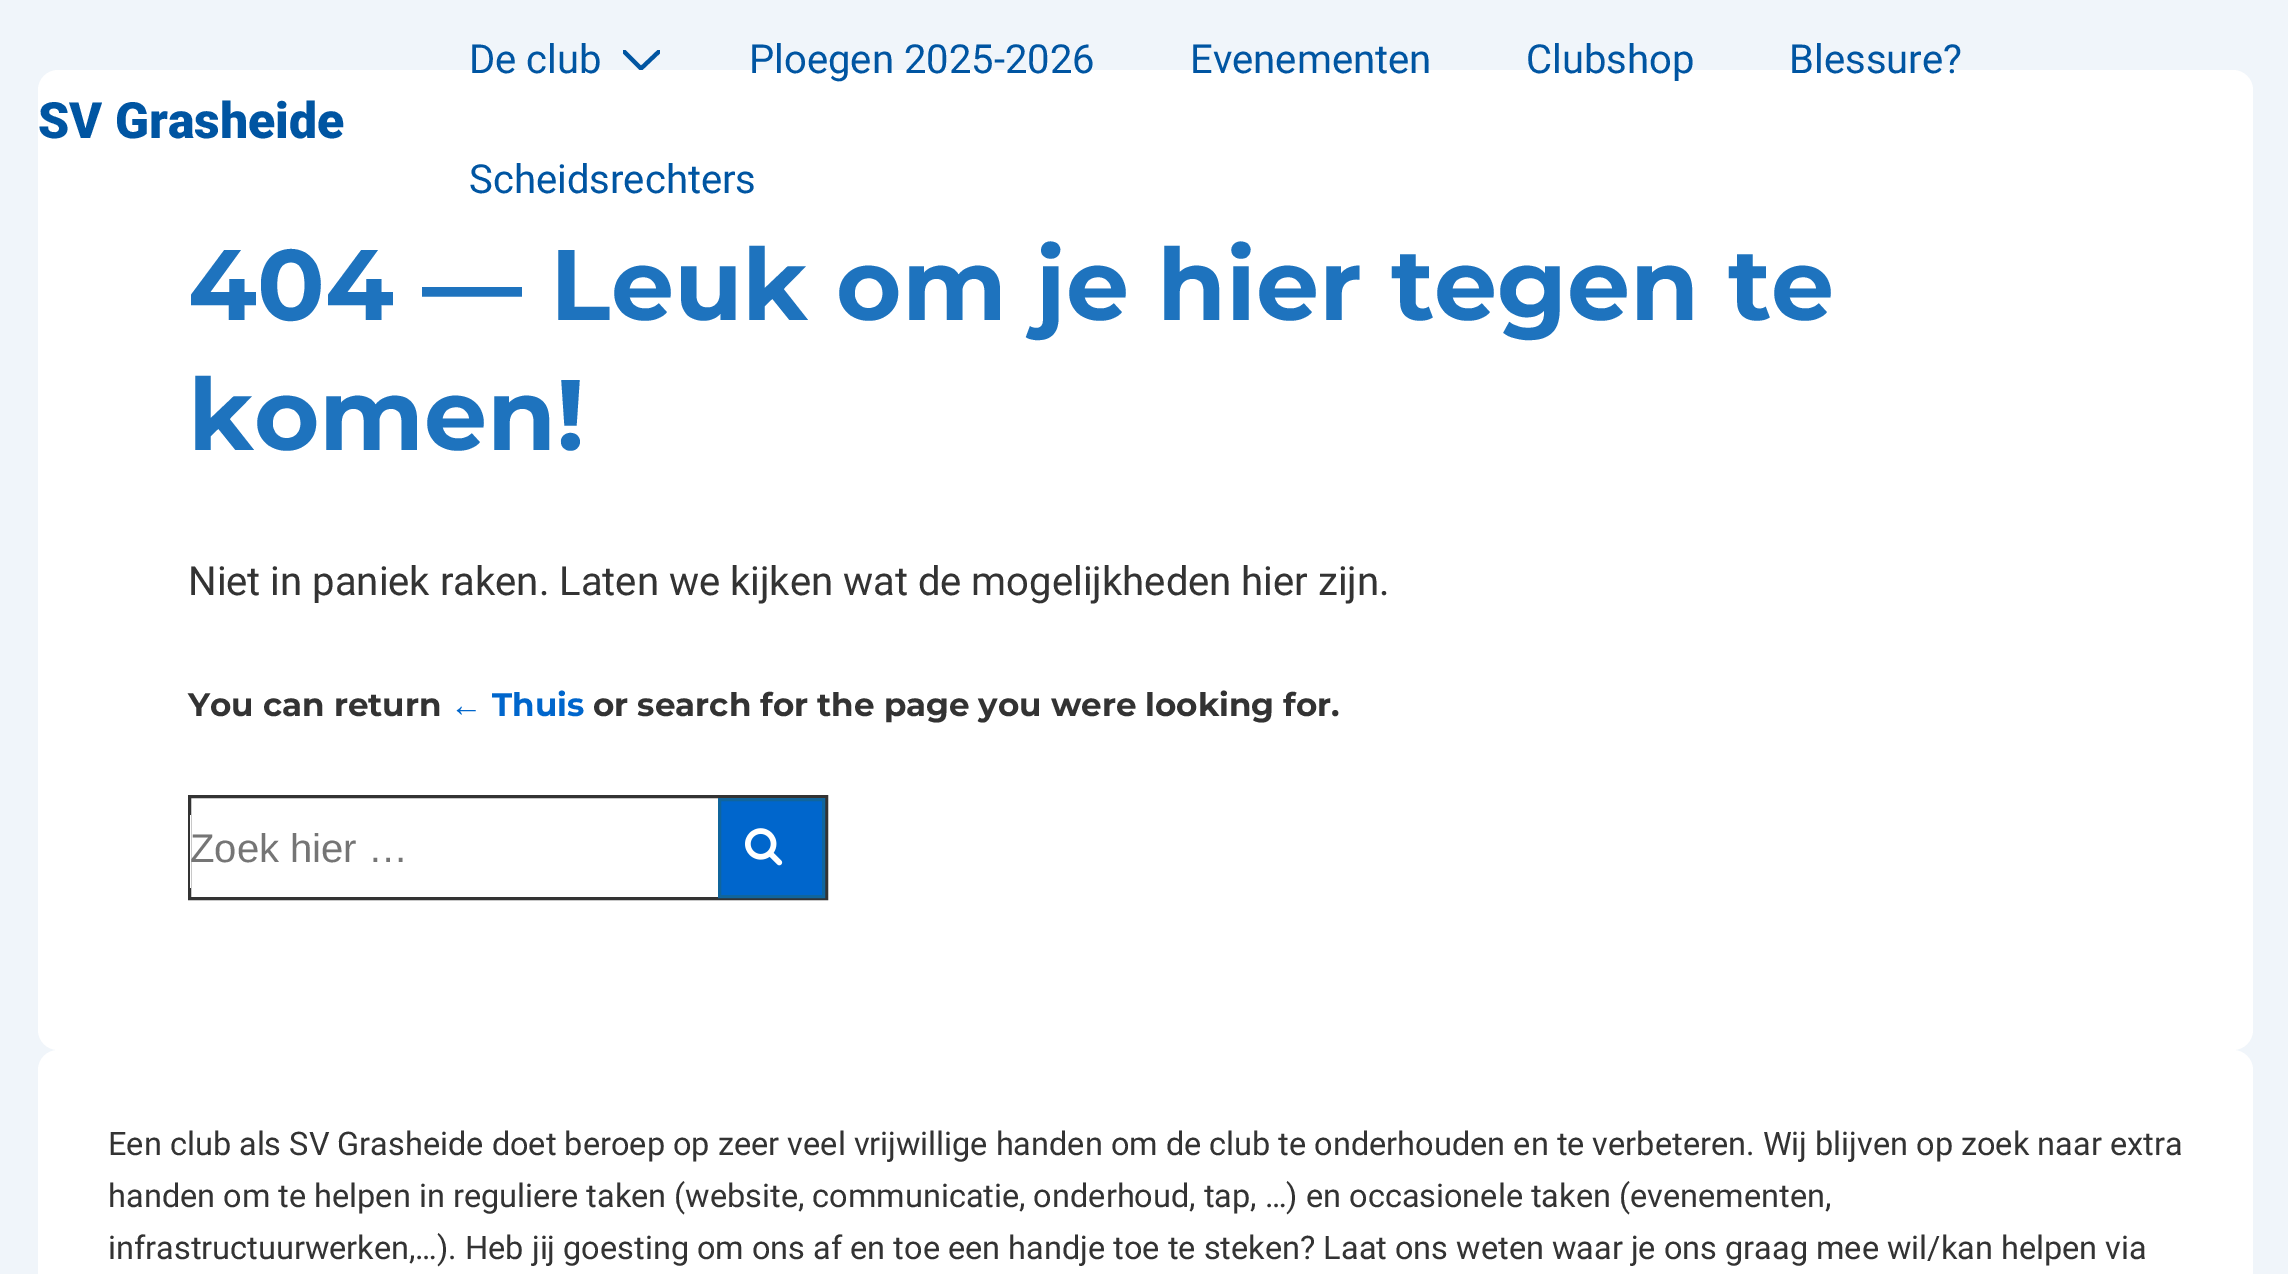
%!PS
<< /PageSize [2288 1274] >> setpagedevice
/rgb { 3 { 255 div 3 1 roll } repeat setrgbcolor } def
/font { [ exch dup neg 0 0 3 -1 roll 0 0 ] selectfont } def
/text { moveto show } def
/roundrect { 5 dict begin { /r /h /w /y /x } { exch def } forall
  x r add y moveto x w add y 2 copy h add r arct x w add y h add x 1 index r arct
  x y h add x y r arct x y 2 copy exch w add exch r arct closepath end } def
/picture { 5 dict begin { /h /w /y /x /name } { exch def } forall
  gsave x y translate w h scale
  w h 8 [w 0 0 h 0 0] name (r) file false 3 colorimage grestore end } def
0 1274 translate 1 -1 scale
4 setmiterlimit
240 245 250 rgb
0 0 2288 1274 rectfill
gsave
623 50 37 20 rectclip
0 85 162 rgb
4.1 setlinewidth
1 setlinecap
624 51.5 moveto 17 17 rlineto 18 -17 rlineto stroke
grestore
255 255 255 rgb
38 70 2215 980 20 roundrect fill
51 51 51 rgb
3 setlinewidth
189.5 796.5 637 102 rectstroke
255 255 255 rgb
190 815 1 73 rectfill
0 102 204 rgb
719.5 799.5 moveto 104 0 rlineto 0 97 rlineto -104 0 rlineto closepath gsave fill grestore
16 101 156 rgb
stroke
(img_01.rgb) 745 828 38 38 picture
255 255 255 rgb
38 1050 2215 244 20 roundrect fill
/Roboto-Black 50 font
0 85 162 rgb
(SV Grasheide) 38 138 text
/Roboto-Regular 40 font
(De club) 469 73 text
(Ploegen 2025-2026) 749 73 text
(Evenementen) 1190 73 text
(Clubshop) 1526 73 text
(Blessure?) 1789 73 text
(Scheidsrechters) 469 193 text
/Montserrat-Bold 100 font
30 115 190 rgb
(404 — Leuk om je hier tegen te) 188 320 text
(komen!) 188 450 text
/Roboto-Regular 40 font
51 51 51 rgb
(Niet in paniek raken. Laten we kijken wat de mogelijkheden hier zijn.) 188 595 text
/Montserrat-Bold 32.5 font
(You can return) 188 716 text
/LiberationSans-Bold 32.5 font
0 102 204 rgb
(←) 450 716 text
/Montserrat-Bold 32.5 font
(Thuis) 492 716 text
51 51 51 rgb
(or search for the page you were looking for.) 593 716 text
/LiberationSans-Regular 40 font
117 117 117 rgb
(Zoek hier …) 190 862 text
/Roboto-Regular 32.5 font
51 51 51 rgb
(Een club als SV Grasheide doet beroep op zeer veel vrijwillige handen om de club te onderhouden en te verbeteren. Wij blijven op zoek naar extra) 108 1155 text
(handen om te helpen in reguliere taken \(website, communicatie, onderhoud, tap, …\) en occasionele taken \(evenementen,) 108 1207 text
(infrastructuurwerken,…\). Heb jij goesting om ons af en toe een handje toe te steken? Laat ons weten waar je ons graag mee wil/kan helpen via) 108 1259 text
showpage
